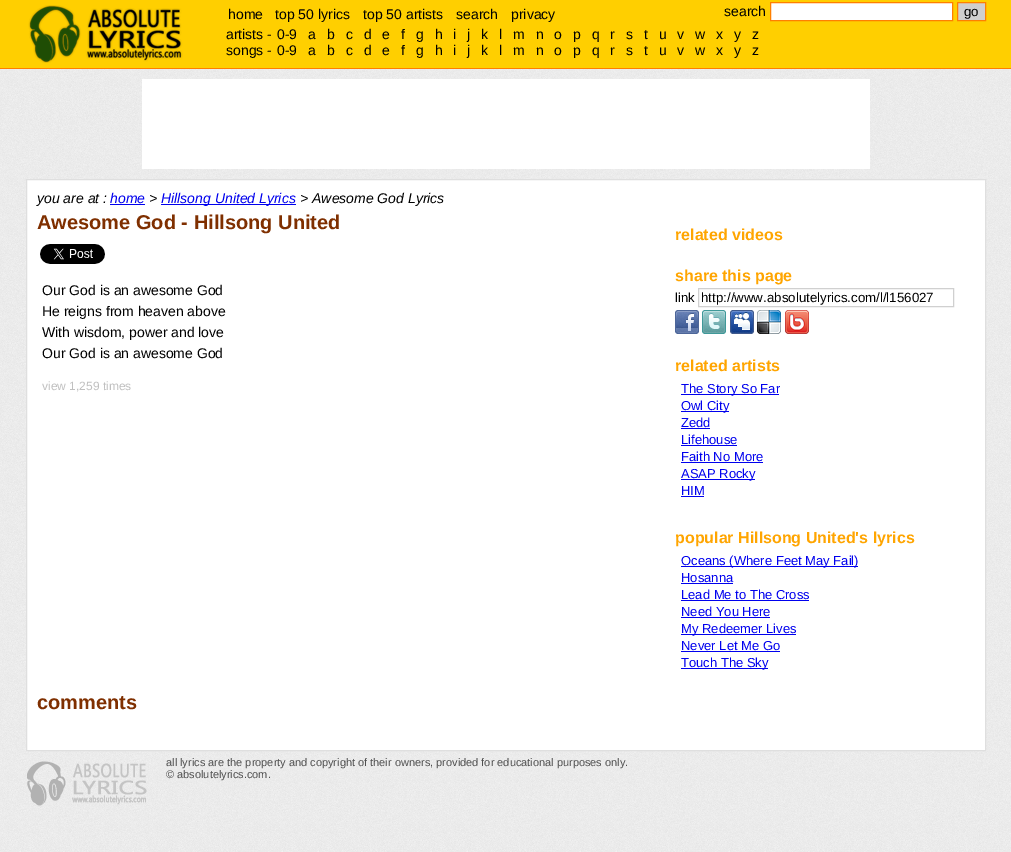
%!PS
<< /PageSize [1011 852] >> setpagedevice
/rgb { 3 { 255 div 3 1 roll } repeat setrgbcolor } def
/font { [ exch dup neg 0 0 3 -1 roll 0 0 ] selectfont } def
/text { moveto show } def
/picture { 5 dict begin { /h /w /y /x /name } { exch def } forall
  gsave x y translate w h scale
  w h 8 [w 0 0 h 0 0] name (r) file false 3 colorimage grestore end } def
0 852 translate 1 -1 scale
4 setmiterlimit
255 255 255 rgb
0 0 1011 852 rectfill
(img_01.rgb) 0 69 1011 783 picture
255 207 0 rgb
0 0 1011 68 rectfill
255 127 0 rgb
0 68 1011 1 rectfill
(img_02.rgb) 28 5 155 58 picture
255 255 255 rgb
770.5 2.5 moveto 182 0 rlineto 0 18 rlineto -182 0 rlineto closepath gsave fill grestore
255 127 0 rgb
stroke
207 207 207 rgb
957.5 2.5 moveto 28 0 rlineto 0 18 rlineto -28 0 rlineto closepath gsave fill grestore
255 127 0 rgb
stroke
255 255 255 rgb
142 79 728 90 rectfill
26.5 179.5 moveto 959 0 rlineto 0 571 rlineto -959 0 rlineto closepath gsave fill grestore
223 223 223 rgb
stroke
0 0 238 rgb
110 204 35 1 rectfill
161 204 135 1 rectfill
(img_03.rgb) 40 244 65 20 picture
208 208 208 rgb
698.5 288.5 255 18 rectstroke
(img_04.rgb) 675 310 24 24 picture
(img_05.rgb) 702 310 24 24 picture
(img_06.rgb) 730 310 24 24 picture
(img_07.rgb) 757 310 24 24 picture
(img_08.rgb) 785 310 24 24 picture
0 0 238 rgb
681 394 98 1 rectfill
681 411 48 1 rectfill
681 428 29 1 rectfill
681 445 56 1 rectfill
681 462 82 1 rectfill
681 479 74 1 rectfill
681 496 23 1 rectfill
681 566 177 1 rectfill
681 583 52 1 rectfill
681 600 128 1 rectfill
681 617 89 1 rectfill
681 634 115 1 rectfill
681 651 99 1 rectfill
681 668 87 1 rectfill
(img_09.rgb) 27 761 120 45 picture
/LiberationSans-Regular 14 font
0 0 0 rgb
(home) 228 19 text
(top 50 lyrics) 275 19 text
(top 50 artists) 363 19 text
(search) 456 19 text
(privacy) 511 19 text
(search) 724 16 text
/LiberationSans-Regular 13.3 font
(go) 964 16 text
/LiberationSans-Regular 14 font
(artists -) 226 39 text
(0-9) 277 39 text
(a) 308 39 text
(b) 327 39 text
(c) 346 39 text
(d) 364 39 text
(e) 382 39 text
(f) 401 39 text
(g) 416 39 text
(h) 435 39 text
(i) 453 39 text
(j) 467 39 text
(k) 481 39 text
(l) 499 39 text
(m) 513 39 text
(n) 536 39 text
(o) 554 39 text
(p) 573 39 text
(q) 592 39 text
(r) 610 39 text
(s) 626 39 text
(t) 644 39 text
(u) 659 39 text
(v) 677 39 text
(w) 695 39 text
(x) 716 39 text
(y) 734 39 text
(z) 752 39 text
(songs -) 226 55 text
(0-9) 277 55 text
(a) 308 55 text
(b) 327 55 text
(c) 346 55 text
(d) 364 55 text
(e) 382 55 text
(f) 401 55 text
(g) 416 55 text
(h) 435 55 text
(i) 453 55 text
(j) 467 55 text
(k) 481 55 text
(l) 499 55 text
(m) 513 55 text
(n) 536 55 text
(o) 554 55 text
(p) 573 55 text
(q) 592 55 text
(r) 610 55 text
(s) 626 55 text
(t) 644 55 text
(u) 659 55 text
(v) 677 55 text
(w) 695 55 text
(x) 716 55 text
(y) 734 55 text
(z) 752 55 text
/LiberationSans-Italic 14 font
(you are at :) 37 203 text
0 0 238 rgb
(home) 110 203 text
0 0 0 rgb
(>) 149 203 text
0 0 238 rgb
(Hillsong United Lyrics) 161 203 text
0 0 0 rgb
(> Awesome God Lyrics) 300 203 text
/LiberationSans-Bold 20 font
127 47 0 rgb
(Awesome God - Hillsong United) 37 229 text
/LiberationSans-Regular 14 font
0 0 0 rgb
(Our God is an awesome God) 42 295 text
(He reigns from heaven above) 42 316 text
(With wisdom, power and love) 42 337 text
(Our God is an awesome God) 42 358 text
/LiberationSans-Regular 12 font
192 192 192 rgb
(view 1,259 times) 42 390 text
/LiberationSans-Bold 20 font
127 47 0 rgb
(comments) 37 709 text
/LiberationSans-Bold 16 font
255 165 0 rgb
(related videos) 675 240 text
(share this page) 675 281 text
/LiberationSans-Regular 13 font
0 0 0 rgb
(link) 675 302 text
/LiberationSans-Regular 13.3 font
(http://www.absolutelyrics.com/l/l156027) 701 302 text
/LiberationSans-Bold 16 font
255 165 0 rgb
(related artists) 675 371 text
/LiberationSans-Regular 13 font
0 0 238 rgb
(The Story So Far) 681 393 text
(Owl City) 681 410 text
(Zedd) 681 427 text
(Lifehouse) 681 444 text
(Faith No More) 681 461 text
(ASAP Rocky) 681 478 text
(HIM) 681 495 text
/LiberationSans-Bold 16 font
255 165 0 rgb
(popular Hillsong United's lyrics) 675 543 text
/LiberationSans-Regular 13 font
0 0 238 rgb
(Oceans \(Where Feet May Fail\)) 681 565 text
(Hosanna) 681 582 text
(Lead Me to The Cross) 681 599 text
(Need You Here) 681 616 text
(My Redeemer Lives) 681 633 text
(Never Let Me Go) 681 650 text
(Touch The Sky) 681 667 text
/LiberationSans-Regular 11 font
79 79 79 rgb
(all lyrics are the property and copyright of their owners, provided for educational purposes only.) 166 766 text
(© absolutelyrics.com.) 166 778 text
showpage
